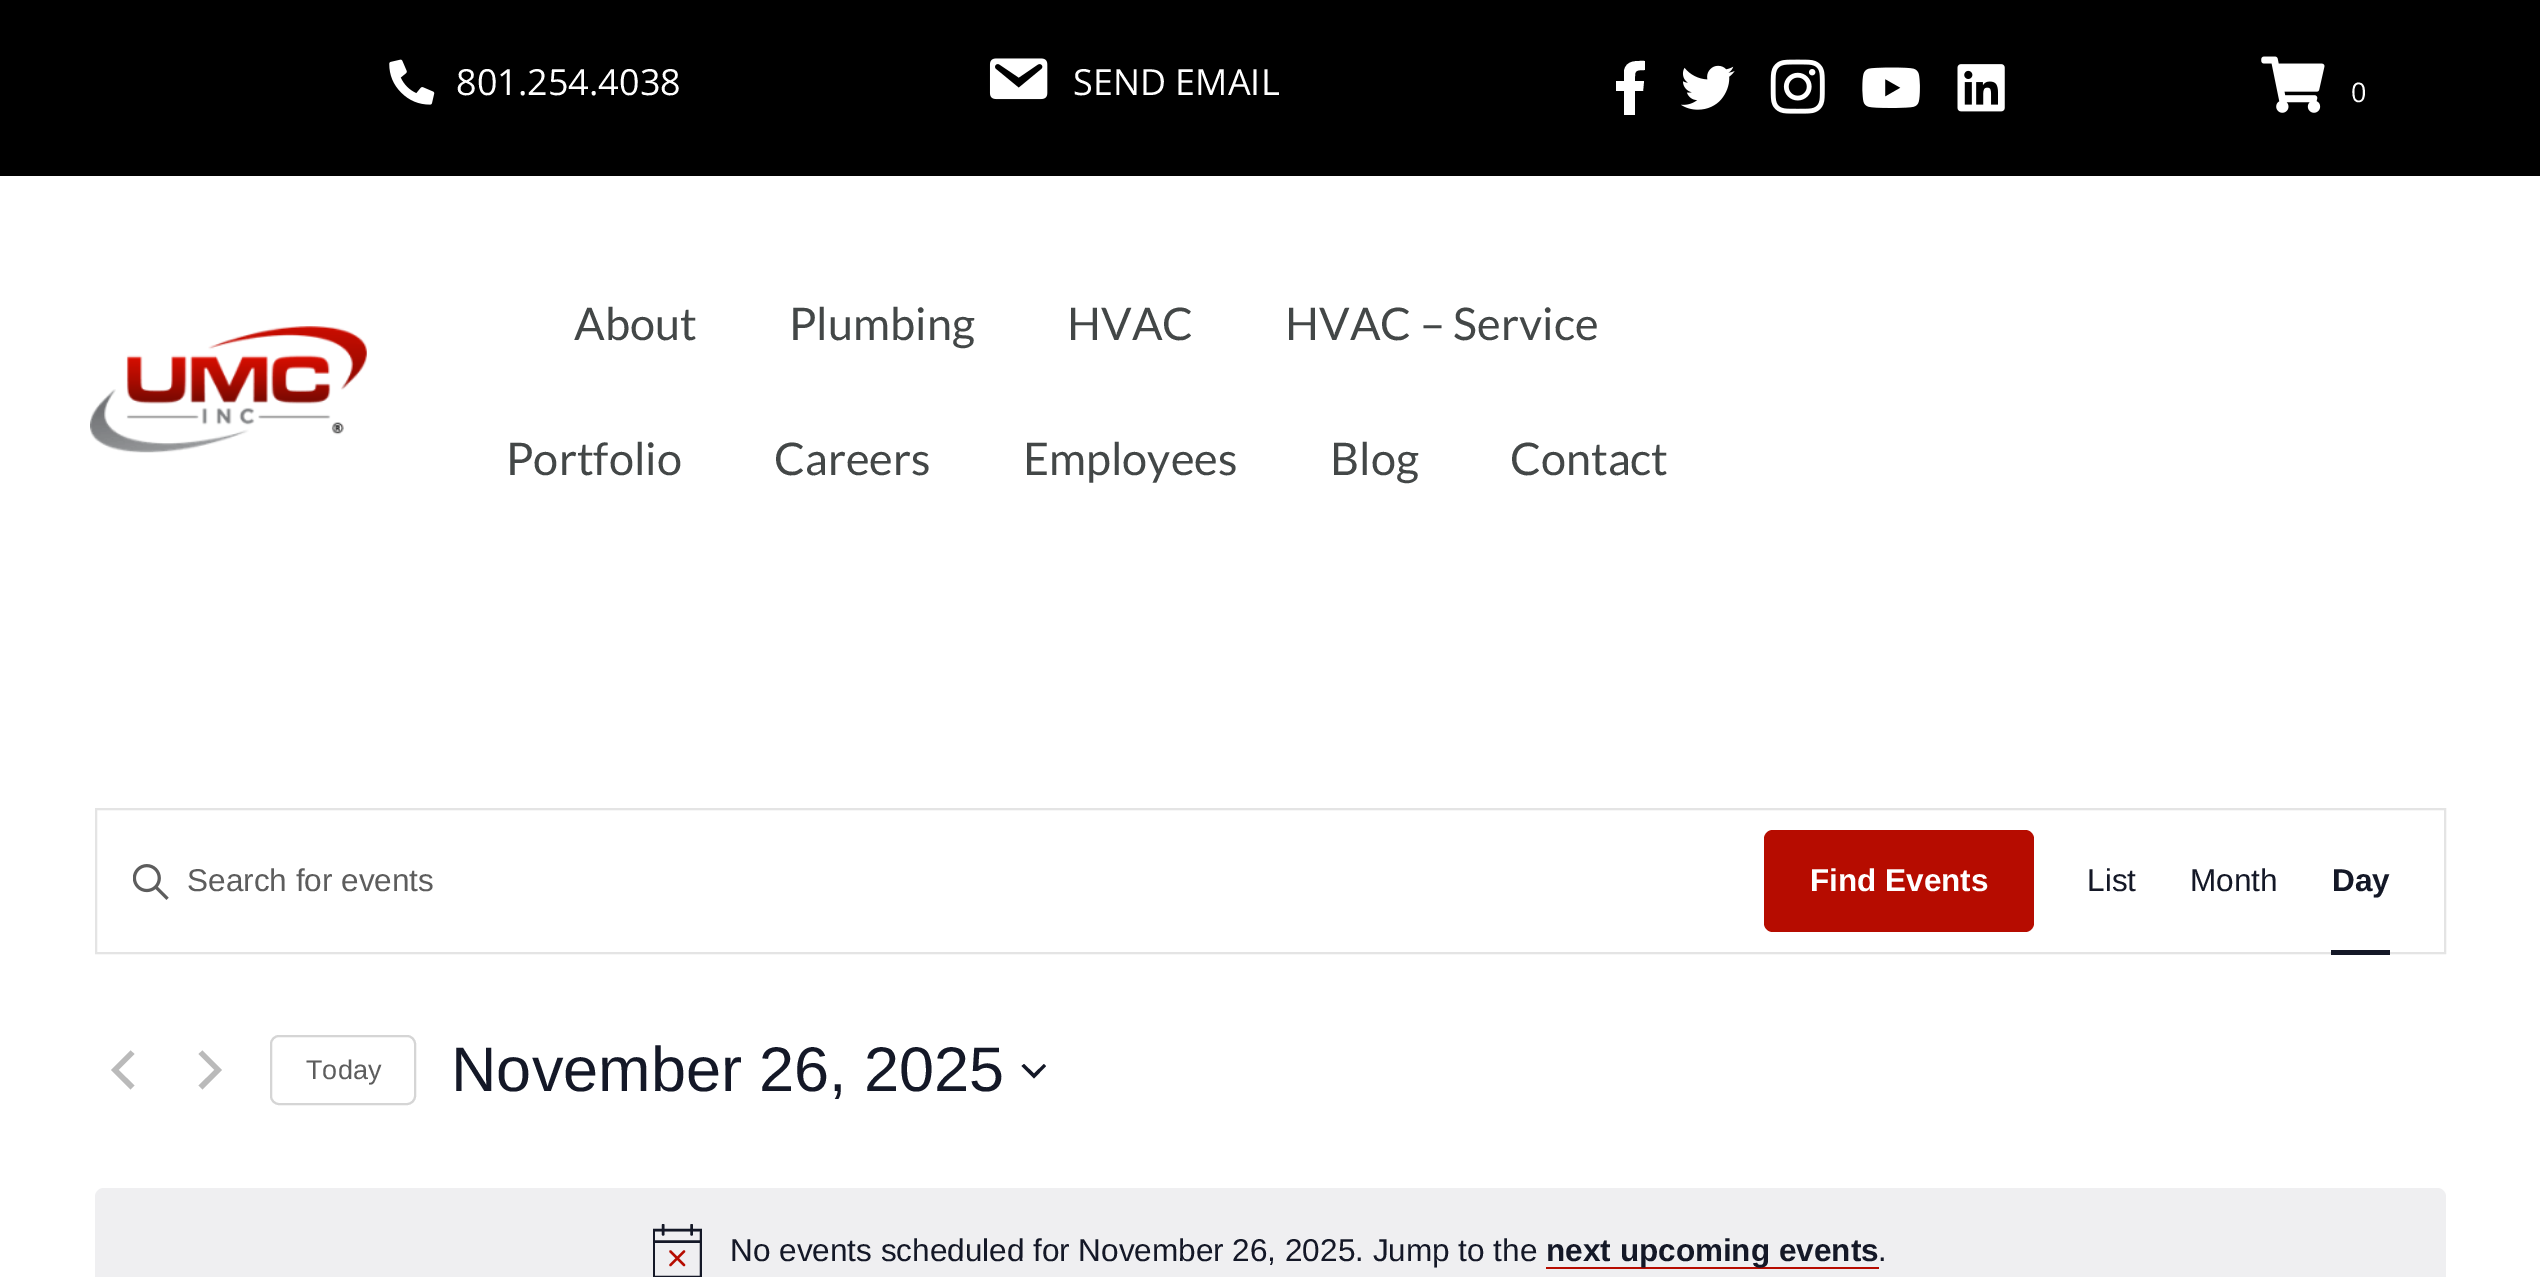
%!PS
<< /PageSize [2540 1277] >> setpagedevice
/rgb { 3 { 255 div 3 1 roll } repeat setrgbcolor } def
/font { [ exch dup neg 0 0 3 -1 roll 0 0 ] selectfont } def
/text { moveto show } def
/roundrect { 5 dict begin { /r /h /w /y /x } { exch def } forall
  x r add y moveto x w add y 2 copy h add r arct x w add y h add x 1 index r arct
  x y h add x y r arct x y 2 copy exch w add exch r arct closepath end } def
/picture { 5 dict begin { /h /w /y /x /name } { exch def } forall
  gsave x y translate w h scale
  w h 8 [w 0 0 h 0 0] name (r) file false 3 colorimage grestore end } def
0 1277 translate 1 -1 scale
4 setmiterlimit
255 255 255 rgb
0 0 2540 1277 rectfill
0 0 0 rgb
0 0 2540 176 rectfill
(img_01.rgb) 389 59 46 46 picture
(img_02.rgb) 989 58 59 42 picture
255 255 255 rgb
1643 91 moveto -8 0 rlineto 0 24 rlineto -11 0 rlineto 0 -24 rlineto -8 0 rlineto 0 -10 rlineto 8 0 rlineto 0 -10 rlineto 2 -11 12 -10 21 -10 rcurveto 0 9 rlineto -11 0 -10 1 -10 11 rcurveto 9 0 rlineto closepath fill
(img_03.rgb) 1681 65 54 45 picture
(img_04.rgb) 1770 59 55 55 picture
(img_05.rgb) 1862 67 58 41 picture
(img_06.rgb) 1957 64 48 48 picture
(img_07.rgb) 2261 56 64 57 picture
(img_08.rgb) 90 326 277 127 picture
228 228 228 rgb
2 setlinewidth
96 809 2349 144 rectstroke
(img_09.rgb) 133 864 36 36 picture
182 12 0 rgb
1764 830 270 102 9 roundrect fill
20 24 39 rgb
2331 950 59 5 rectfill
186 186 186 rgb
134.5 1085.5 moveto -4 4 rlineto -19.5 -19.5 rlineto 19.5 -19.5 rlineto 4 3.5 rlineto -16 16 rlineto closepath fill
198.5 1054 moveto 4 -3.5 rlineto 19.5 19.5 rlineto -19.5 19.5 rlineto -4 -4 rlineto 16 -15.5 rlineto closepath fill
213 213 213 rgb
271 1036 144 68 8 roundrect stroke
20 24 39 rgb
1024 1064 moveto 10 9.5 rlineto 10 -9.5 rlineto 2 2 rlineto -12 12.5 rlineto -12.5 -12.5 rlineto closepath eofill
239 239 241 rgb
95 1188 2351 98 9 roundrect fill
gsave
653 1224 49 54 rectclip
20 24 39 rgb
2.4 setlinewidth
653.5 1230 moveto 47.5 0 rlineto 0 47 rlineto -47.5 0 rlineto closepath stroke
grestore
182 12 0 rgb
2.4 setlinewidth
1 setlinecap
670.5 1251.5 moveto 13.5 13.5 rlineto 684 1251.5 moveto -13.5 13.5 rlineto stroke
gsave
653 1224 49 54 rectclip
20 24 39 rgb
663 1225 moveto 0 9.5 rlineto 691.5 1225 moveto 0 9.5 rlineto stroke
2 setlinecap
653.5 1241.5 moveto 47.5 0 rlineto stroke
grestore
1546 1267 333 2 rectfill
/OpenSans-Regular 36 font
255 255 255 rgb
(801.254.4038) 456 95 text
(SEND EMAIL) 1073 95 text
/OpenSans-Regular 27 font
(0) 2351 102 text
/Lato-Regular 45 font
67 71 71 rgb
(About) 574 340 text
(Plumbing) 789 340 text
(HVAC) 1067 340 text
(HVAC – Service) 1285 340 text
(Portfolio) 506 475 text
(Careers) 774 475 text
(Employees) 1023 475 text
(Blog) 1330 475 text
(Contact) 1510 475 text
/LiberationSans-Regular 31.5 font
93 93 93 rgb
(Search for events) 187 891 text
/LiberationSans-Bold 31.5 font
255 255 255 rgb
(Find Events) 1810 891 text
/LiberationSans-Regular 31.5 font
20 24 39 rgb
(List) 2087 891 text
(Month) 2190 891 text
/LiberationSans-Bold 31.5 font
(Day) 2332 891 text
/LiberationSans-Regular 27 font
93 93 93 rgb
(Today) 306 1079 text
/LiberationSans-Regular 63 font
20 24 39 rgb
(November 26, 2025) 451 1091 text
/LiberationSans-Regular 31.5 font
(No events scheduled for November 26, 2025. Jump to the) 730 1261 text
/LiberationSans-Bold 31.5 font
(next upcoming events) 1546 1261 text
/LiberationSans-Regular 31.5 font
(.) 1878 1261 text
showpage
